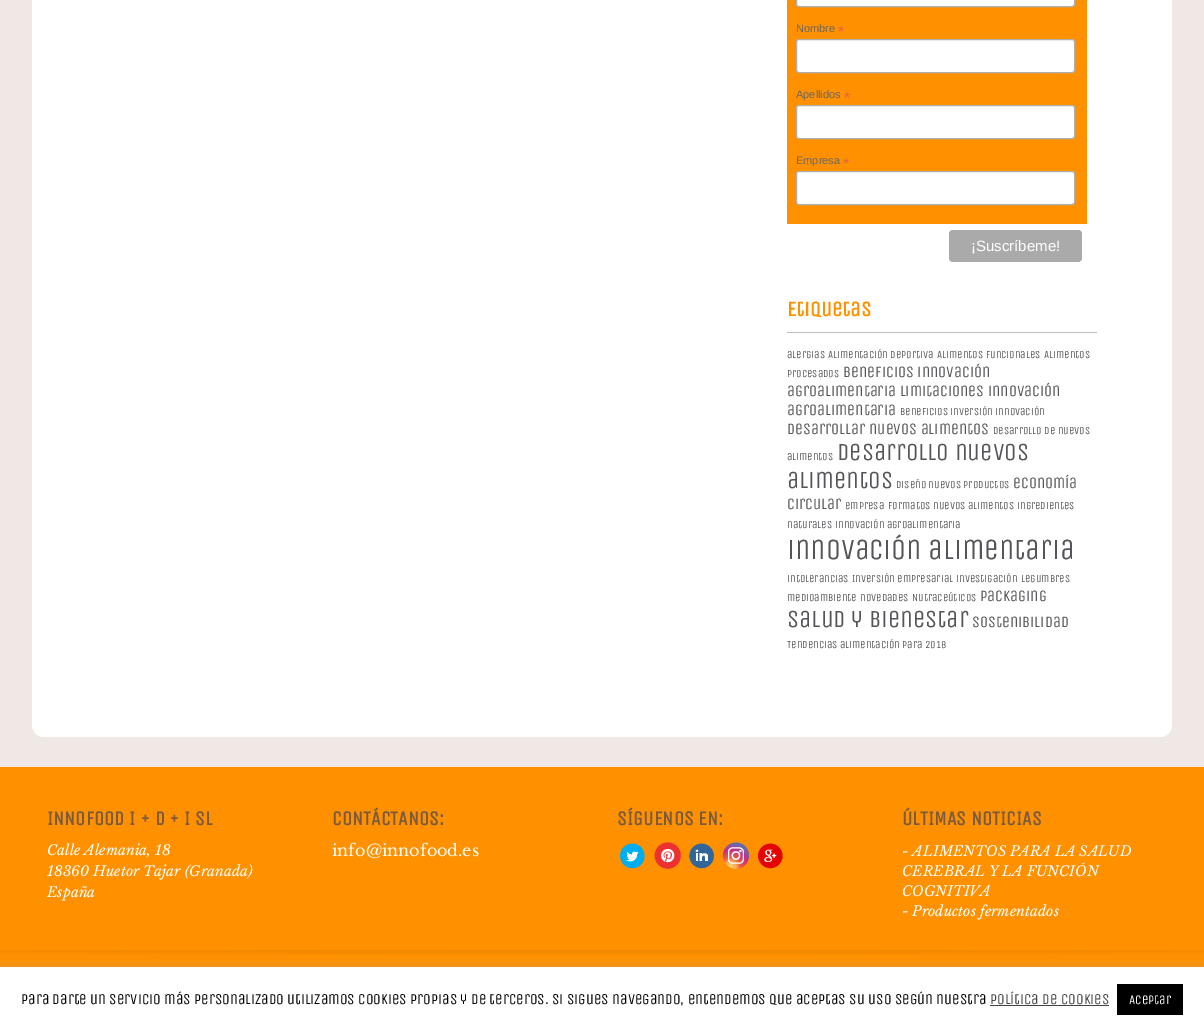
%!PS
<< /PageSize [1204 1027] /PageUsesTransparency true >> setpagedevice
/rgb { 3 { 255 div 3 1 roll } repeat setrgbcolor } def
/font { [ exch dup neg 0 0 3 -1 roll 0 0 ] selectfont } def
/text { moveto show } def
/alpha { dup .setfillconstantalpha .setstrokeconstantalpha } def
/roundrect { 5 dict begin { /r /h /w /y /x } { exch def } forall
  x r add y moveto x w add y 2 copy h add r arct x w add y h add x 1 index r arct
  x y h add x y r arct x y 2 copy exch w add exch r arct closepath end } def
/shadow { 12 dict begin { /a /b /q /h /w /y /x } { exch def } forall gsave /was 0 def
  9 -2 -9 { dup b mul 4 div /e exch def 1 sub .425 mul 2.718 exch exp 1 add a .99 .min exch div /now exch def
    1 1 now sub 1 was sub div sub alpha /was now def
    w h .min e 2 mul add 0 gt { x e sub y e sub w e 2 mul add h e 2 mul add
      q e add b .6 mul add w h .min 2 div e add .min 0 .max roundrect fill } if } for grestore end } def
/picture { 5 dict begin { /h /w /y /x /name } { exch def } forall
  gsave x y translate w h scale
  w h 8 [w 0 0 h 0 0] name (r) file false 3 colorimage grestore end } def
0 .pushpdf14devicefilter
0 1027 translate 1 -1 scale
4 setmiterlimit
239 232 228 rgb
0 0 1204 1027 rectfill
255 255 255 rgb
32 -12 1140 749 12 roundrect fill
255 144 0 rgb
787 0 300 224 rectfill
255 255 255 rgb
796.5 -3.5 278 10 2.5 roundrect gsave fill grestore
171 176 178 rgb
stroke
255 255 255 rgb
796.5 39.5 278 33 2.5 roundrect gsave fill grestore
171 176 178 rgb
stroke
255 255 255 rgb
796.5 105.5 278 33 2.5 roundrect gsave fill grestore
171 176 178 rgb
stroke
255 255 255 rgb
796.5 171.5 278 33 2.5 roundrect gsave fill grestore
171 176 178 rgb
stroke
170 170 170 rgb
949 230 133 32 4 roundrect fill
191 191 191 rgb
787 332 310 1 rectfill
255 144 0 rgb
0 767 1204 200 rectfill
(img_01.rgb) 620 843 25 26 picture
(img_02.rgb) 654 842 27 27 picture
(img_03.rgb) 689 843 25 26 picture
(img_04.rgb) 722 842 27 27 picture
(img_05.rgb) 758 843 25 26 picture
(img_06.rgb) 0 950 1204 5 picture
172 171 171 rgb
0 966 1204 60 0 5 0.3 shadow
255 255 255 rgb
0 967 1204 60 rectfill
68 68 68 rgb
990 1005 119 1 rectfill
0 0 0 rgb
1117 984 66 31 rectfill
/LiberationSans-Regular 11 font
102 102 102 rgb
(Nombre) 796 32 text
/LiberationSans-Regular 16 font
232 92 65 rgb
(*) 838 37 text
/LiberationSans-Regular 11 font
102 102 102 rgb
(Apellidos) 796 98 text
/LiberationSans-Regular 16 font
232 92 65 rgb
(*) 844 103 text
/LiberationSans-Regular 11 font
102 102 102 rgb
(Empresa) 796 164 text
/LiberationSans-Regular 16 font
232 92 65 rgb
(*) 843 169 text
/LiberationSans-Regular 15 font
255 255 255 rgb
(¡Suscríbeme!) 971 251 text
/UnicaOne-Bold 21 font
255 144 0 rgb
(Etiquetas) 787 316 text
/UnicaOne-Regular 10.7 font
85 85 89 rgb
(alergias) 787 358 text
(Alimentación deportiva) 828 358 text
(Alimentos Funcionales) 937 358 text
(Alimentos) 1044 358 text
(procesados) 787 377 text
/UnicaOne-Regular 15.8 font
(beneficios innovación) 843 377 text
(agroalimentaria limitaciones innovación) 787 396 text
(agroalimentaria) 787 415 text
/UnicaOne-Regular 10.7 font
(beneficios inversión innovación) 900 415 text
/UnicaOne-Regular 15.8 font
(desarrollar nuevos alimentos) 787 434 text
/UnicaOne-Regular 10.7 font
(desarrollo de nuevos) 993 434 text
(alimentos) 787 460 text
/UnicaOne-Regular 24.5 font
(desarrollo nuevos) 837 460 text
(alimentos) 787 488 text
/UnicaOne-Regular 10.7 font
(diseño nuevos productos) 896 488 text
/UnicaOne-Regular 15.8 font
(economía) 1013 488 text
(circular) 787 509 text
/UnicaOne-Regular 10.7 font
(empresa) 845 509 text
(formatos nuevos alimentos) 888 509 text
(ingredientes) 1017 509 text
(naturales) 787 528 text
(innovación agroalimentaria) 835 528 text
/UnicaOne-Regular 29.25 font
(innovación alimentaria) 787 559 text
/UnicaOne-Regular 10.7 font
(intolerancias) 787 582 text
(Inversión empresarial) 852 582 text
(investigación) 956 582 text
(legumbres) 1021 582 text
(medioambiente) 787 601 text
(novedades) 860 601 text
(Nutraceúticos) 912 601 text
/UnicaOne-Regular 15.8 font
(packaging) 980 601 text
/UnicaOne-Regular 24.5 font
(salud y bienestar) 787 627 text
/UnicaOne-Regular 15.8 font
(sostenibilidad) 972 627 text
/UnicaOne-Regular 10.7 font
(Tendencias alimentación para 2018) 787 648 text
/UnicaOne-Bold 20 font
122 91 63 rgb
(INNOFOOD I + D + I SL) 47 825 text
/LibreBaskerville-Italic 14 font
255 255 255 rgb
(Calle Alemania, 18) 47 855 text
(18360 Huetor Tajar \(Granada\)) 47 876 text
(España) 47 897 text
/UnicaOne-Bold 20 font
122 91 63 rgb
(CONTÁCTANOS:) 332 825 text
/LibreBaskerville-Regular 16 font
255 255 255 rgb
(info@innofood.es) 332 856 text
/UnicaOne-Bold 20 font
122 91 63 rgb
(SÍGUENOS EN:) 617 825 text
(ÚLTIMAS NOTICIAS) 902 825 text
/LibreBaskerville-Italic 14 font
255 255 255 rgb
(- ALIMENTOS PARA LA SALUD) 902 856 text
(CEREBRAL Y LA FUNCIÓN) 902 876 text
(COGNITIVA) 902 896 text
(- Productos fermentados) 902 916 text
/UnicaOne-Regular 15 font
0 0 0 rgb
(Para darte un servicio más personalizado utilizamos cookies propias y de terceros. Si sigues navegando, entendemos que aceptas su uso según nuestra) 21 1004 text
68 68 68 rgb
(Política de Cookies) 990 1004 text
/UnicaOne-Regular 13 font
255 255 255 rgb
(Aceptar) 1129 1004 text
.poppdf14devicefilter showpage
